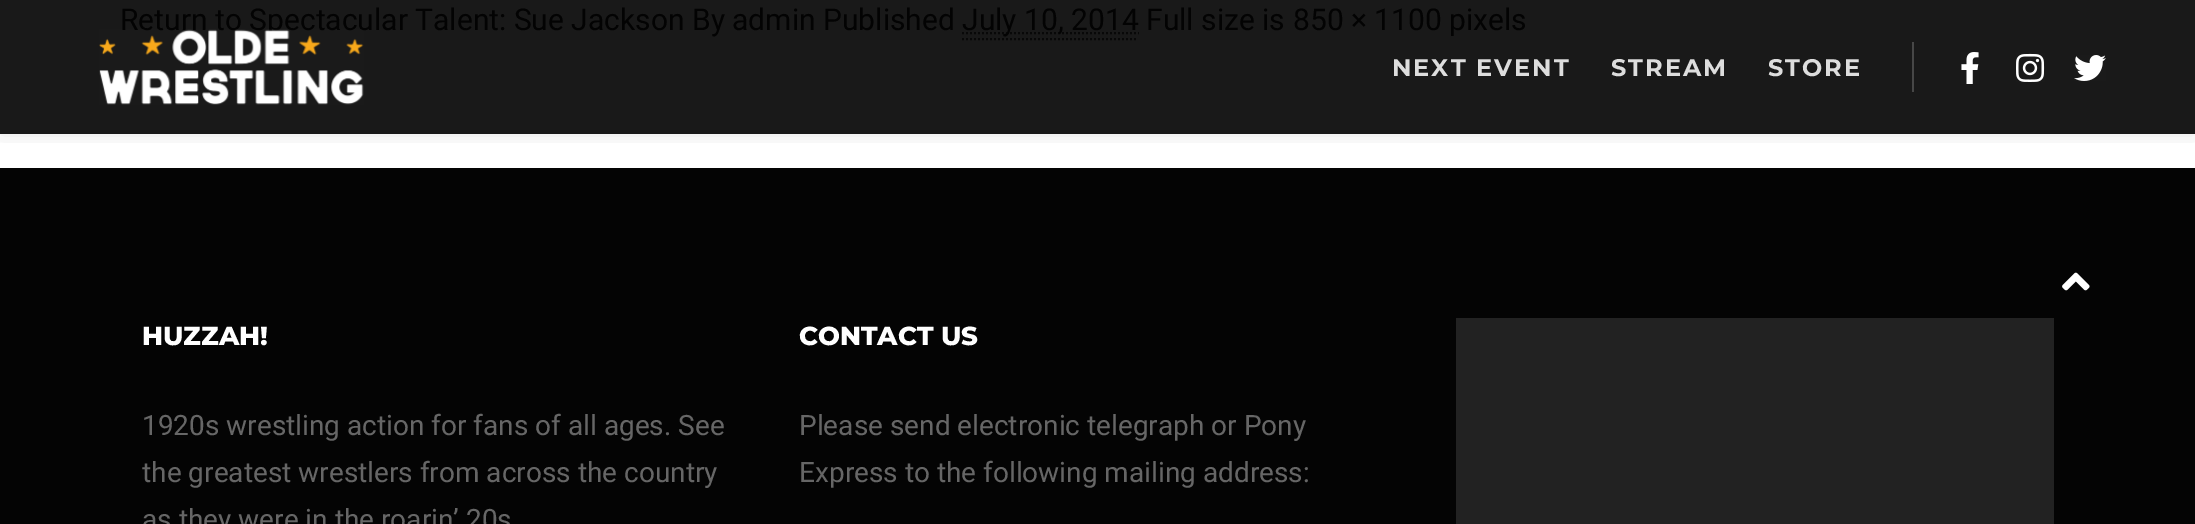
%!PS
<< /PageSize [2195 524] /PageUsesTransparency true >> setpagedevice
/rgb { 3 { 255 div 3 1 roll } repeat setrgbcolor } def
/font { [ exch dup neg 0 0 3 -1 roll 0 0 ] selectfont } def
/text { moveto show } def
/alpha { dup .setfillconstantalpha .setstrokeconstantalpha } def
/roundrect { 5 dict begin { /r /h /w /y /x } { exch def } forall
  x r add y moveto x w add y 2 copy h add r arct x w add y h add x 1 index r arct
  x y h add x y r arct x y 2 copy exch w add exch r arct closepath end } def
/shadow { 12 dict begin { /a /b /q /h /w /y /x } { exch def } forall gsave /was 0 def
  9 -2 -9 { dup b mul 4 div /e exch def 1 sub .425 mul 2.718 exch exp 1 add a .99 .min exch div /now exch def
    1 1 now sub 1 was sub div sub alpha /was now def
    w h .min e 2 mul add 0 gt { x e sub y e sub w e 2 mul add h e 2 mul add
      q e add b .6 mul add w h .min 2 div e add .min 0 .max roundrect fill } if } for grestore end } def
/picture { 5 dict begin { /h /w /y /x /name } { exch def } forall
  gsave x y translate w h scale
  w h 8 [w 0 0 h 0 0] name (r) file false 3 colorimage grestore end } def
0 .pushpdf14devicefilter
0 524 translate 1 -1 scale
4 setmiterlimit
255 255 255 rgb
0 0 2195 524 rectfill
25 25 25 rgb
0 0 2195 134 rectfill
8 8 8 rgb
2 setlinewidth
[2 2] 0 setdash
962 39 moveto 176 0 rlineto stroke
962 33 moveto 177 0 rlineto stroke
4 4 4 rgb
0 168 2195 356 rectfill
gsave
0 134 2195 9 rectclip
0 0 0 rgb
0 0 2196 134 0 12 0.09 shadow
grestore
71 71 71 rgb
1912 42 2 50 rectfill
(img_02.rgb) 1961 52 18 32 picture
(img_03.rgb) 2016 53 29 29 picture
(img_04.rgb) 2074 55 32 26 picture
(img_05.rgb) 2062 272 28 19 picture
34 34 34 rgb
1456 318 598 206 rectfill
/Roboto-Regular 30 font
3 3 3 rgb
(Return to Spectacular Talent: Sue Jackson) 120 30 text
(By) 692 30 text
(admin) 732 30 text
(Published) 823 30 text
(July 10, 2014 Full size is) 962 30 text
(850 × 1100) 1293 30 text
(pixels) 1449 30 text
(img_01.rgb) 99 29 265 76 picture
/Montserrat-Bold 24 font
221 221 221 rgb
1392 76 moveto 2 0 (NEXT EVENT) ashow
1611 76 moveto 2 0 (STREAM) ashow
1768 76 moveto 2 0 (STORE) ashow
/Montserrat-ExtraBold 26 font
255 255 255 rgb
(HUZZAH!) 142 345 text
/Roboto-Regular 28 font
102 102 102 rgb
(1920s wrestling action for fans of all ages. See) 142 435 text
(the greatest wrestlers from across the country) 142 482 text
(as they were in the roarin’ 20s) 142 529 text
/Montserrat-ExtraBold 26 font
255 255 255 rgb
(CONTACT US) 799 345 text
/Roboto-Regular 28 font
102 102 102 rgb
(Please send electronic telegraph or Pony) 799 435 text
(Express to the following mailing address:) 799 482 text
.poppdf14devicefilter showpage
